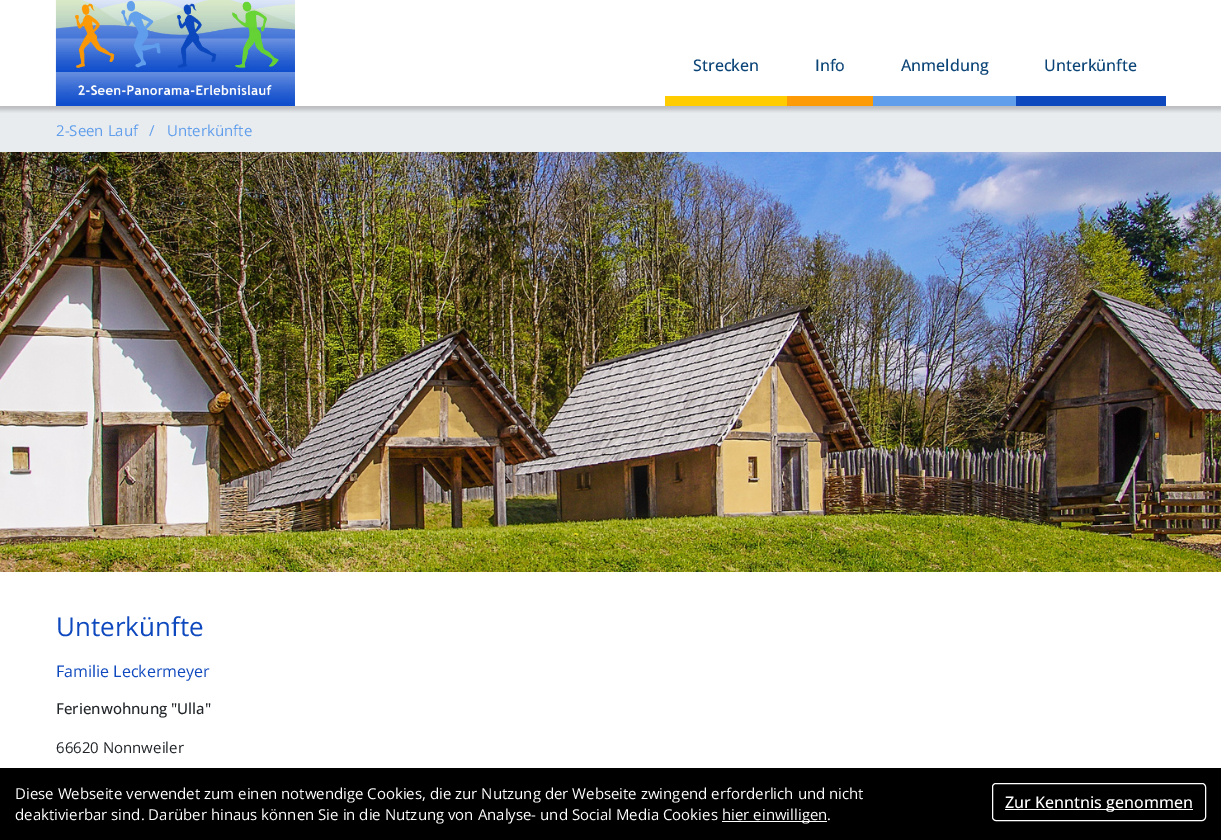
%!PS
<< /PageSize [1221 840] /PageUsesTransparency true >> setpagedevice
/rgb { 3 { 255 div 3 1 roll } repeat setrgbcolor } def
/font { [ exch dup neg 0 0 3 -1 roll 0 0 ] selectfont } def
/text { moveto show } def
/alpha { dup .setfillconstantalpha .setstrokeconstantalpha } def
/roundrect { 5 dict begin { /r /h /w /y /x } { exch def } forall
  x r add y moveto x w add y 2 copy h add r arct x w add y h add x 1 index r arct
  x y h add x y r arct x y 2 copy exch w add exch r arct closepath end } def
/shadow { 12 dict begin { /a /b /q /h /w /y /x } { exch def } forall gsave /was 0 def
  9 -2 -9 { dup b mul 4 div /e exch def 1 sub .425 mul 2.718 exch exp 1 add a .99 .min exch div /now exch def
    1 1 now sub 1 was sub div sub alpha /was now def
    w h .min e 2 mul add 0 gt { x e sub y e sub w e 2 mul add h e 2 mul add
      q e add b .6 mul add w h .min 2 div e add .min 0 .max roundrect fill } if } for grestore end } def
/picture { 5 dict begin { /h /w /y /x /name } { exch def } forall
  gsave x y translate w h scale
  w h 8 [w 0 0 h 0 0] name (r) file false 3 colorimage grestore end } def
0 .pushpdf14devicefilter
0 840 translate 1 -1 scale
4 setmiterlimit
255 255 255 rgb
0 0 1221 840 rectfill
233 236 239 rgb
0 106 1221 46 rectfill
gsave
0 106 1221 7 rectclip
0 0 0 rgb
-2 0 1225 110 0 2 0.2 shadow
grestore
(img_01.rgb) 55 0 240 106 picture
255 204 0 rgb
665 96 122 10 rectfill
253 155 6 rgb
787 96 86 10 rectfill
96 158 236 rgb
873 96 143 10 rectfill
13 72 190 rgb
1016 96 150 10 rectfill
(img_02.rgb) 0 152 1221 420 picture
0 0 0 rgb
0 768 1221 72 rectfill
255 255 255 rgb
722 821 105 1 rectfill
992.5 783.5 213 37 3.5 roundrect stroke
1005 809 188 1 rectfill
/OpenSans-Medium 16 font
11 68 118 rgb
(Strecken) 693 71 text
(Info) 815 71 text
(Anmeldung) 901 71 text
(Unterkünfte) 1044 71 text
/OpenSans-Regular 15 font
96 158 236 rgb
(2-Seen Lauf) 56 136 text
(/) 149 136 text
(Unterkünfte) 167 136 text
/OpenSans-Regular 26 font
13 72 190 rgb
(Unterkünfte) 56 636 text
/OpenSans-Regular 16 font
(Familie Leckermeyer) 56 677 text
/OpenSans-Medium 15 font
33 37 41 rgb
(Ferienwohnung "Ulla") 56 714 text
/OpenSans-Regular 15 font
(66620 Nonnweiler) 56 753 text
255 255 255 rgb
(Diese Webseite verwendet zum einen notwendige Cookies, die zur Nutzung der Webseite zwingend erforderlich und nicht) 15 799 text
(deaktivierbar sind. Darüber hinaus können Sie in die Nutzung von Analyse- und Social Media Cookies) 15 820 text
(hier einwilligen.) 722 820 text
/OpenSans-Medium 16 font
(Zur Kenntnis genommen) 1005 808 text
.poppdf14devicefilter showpage
